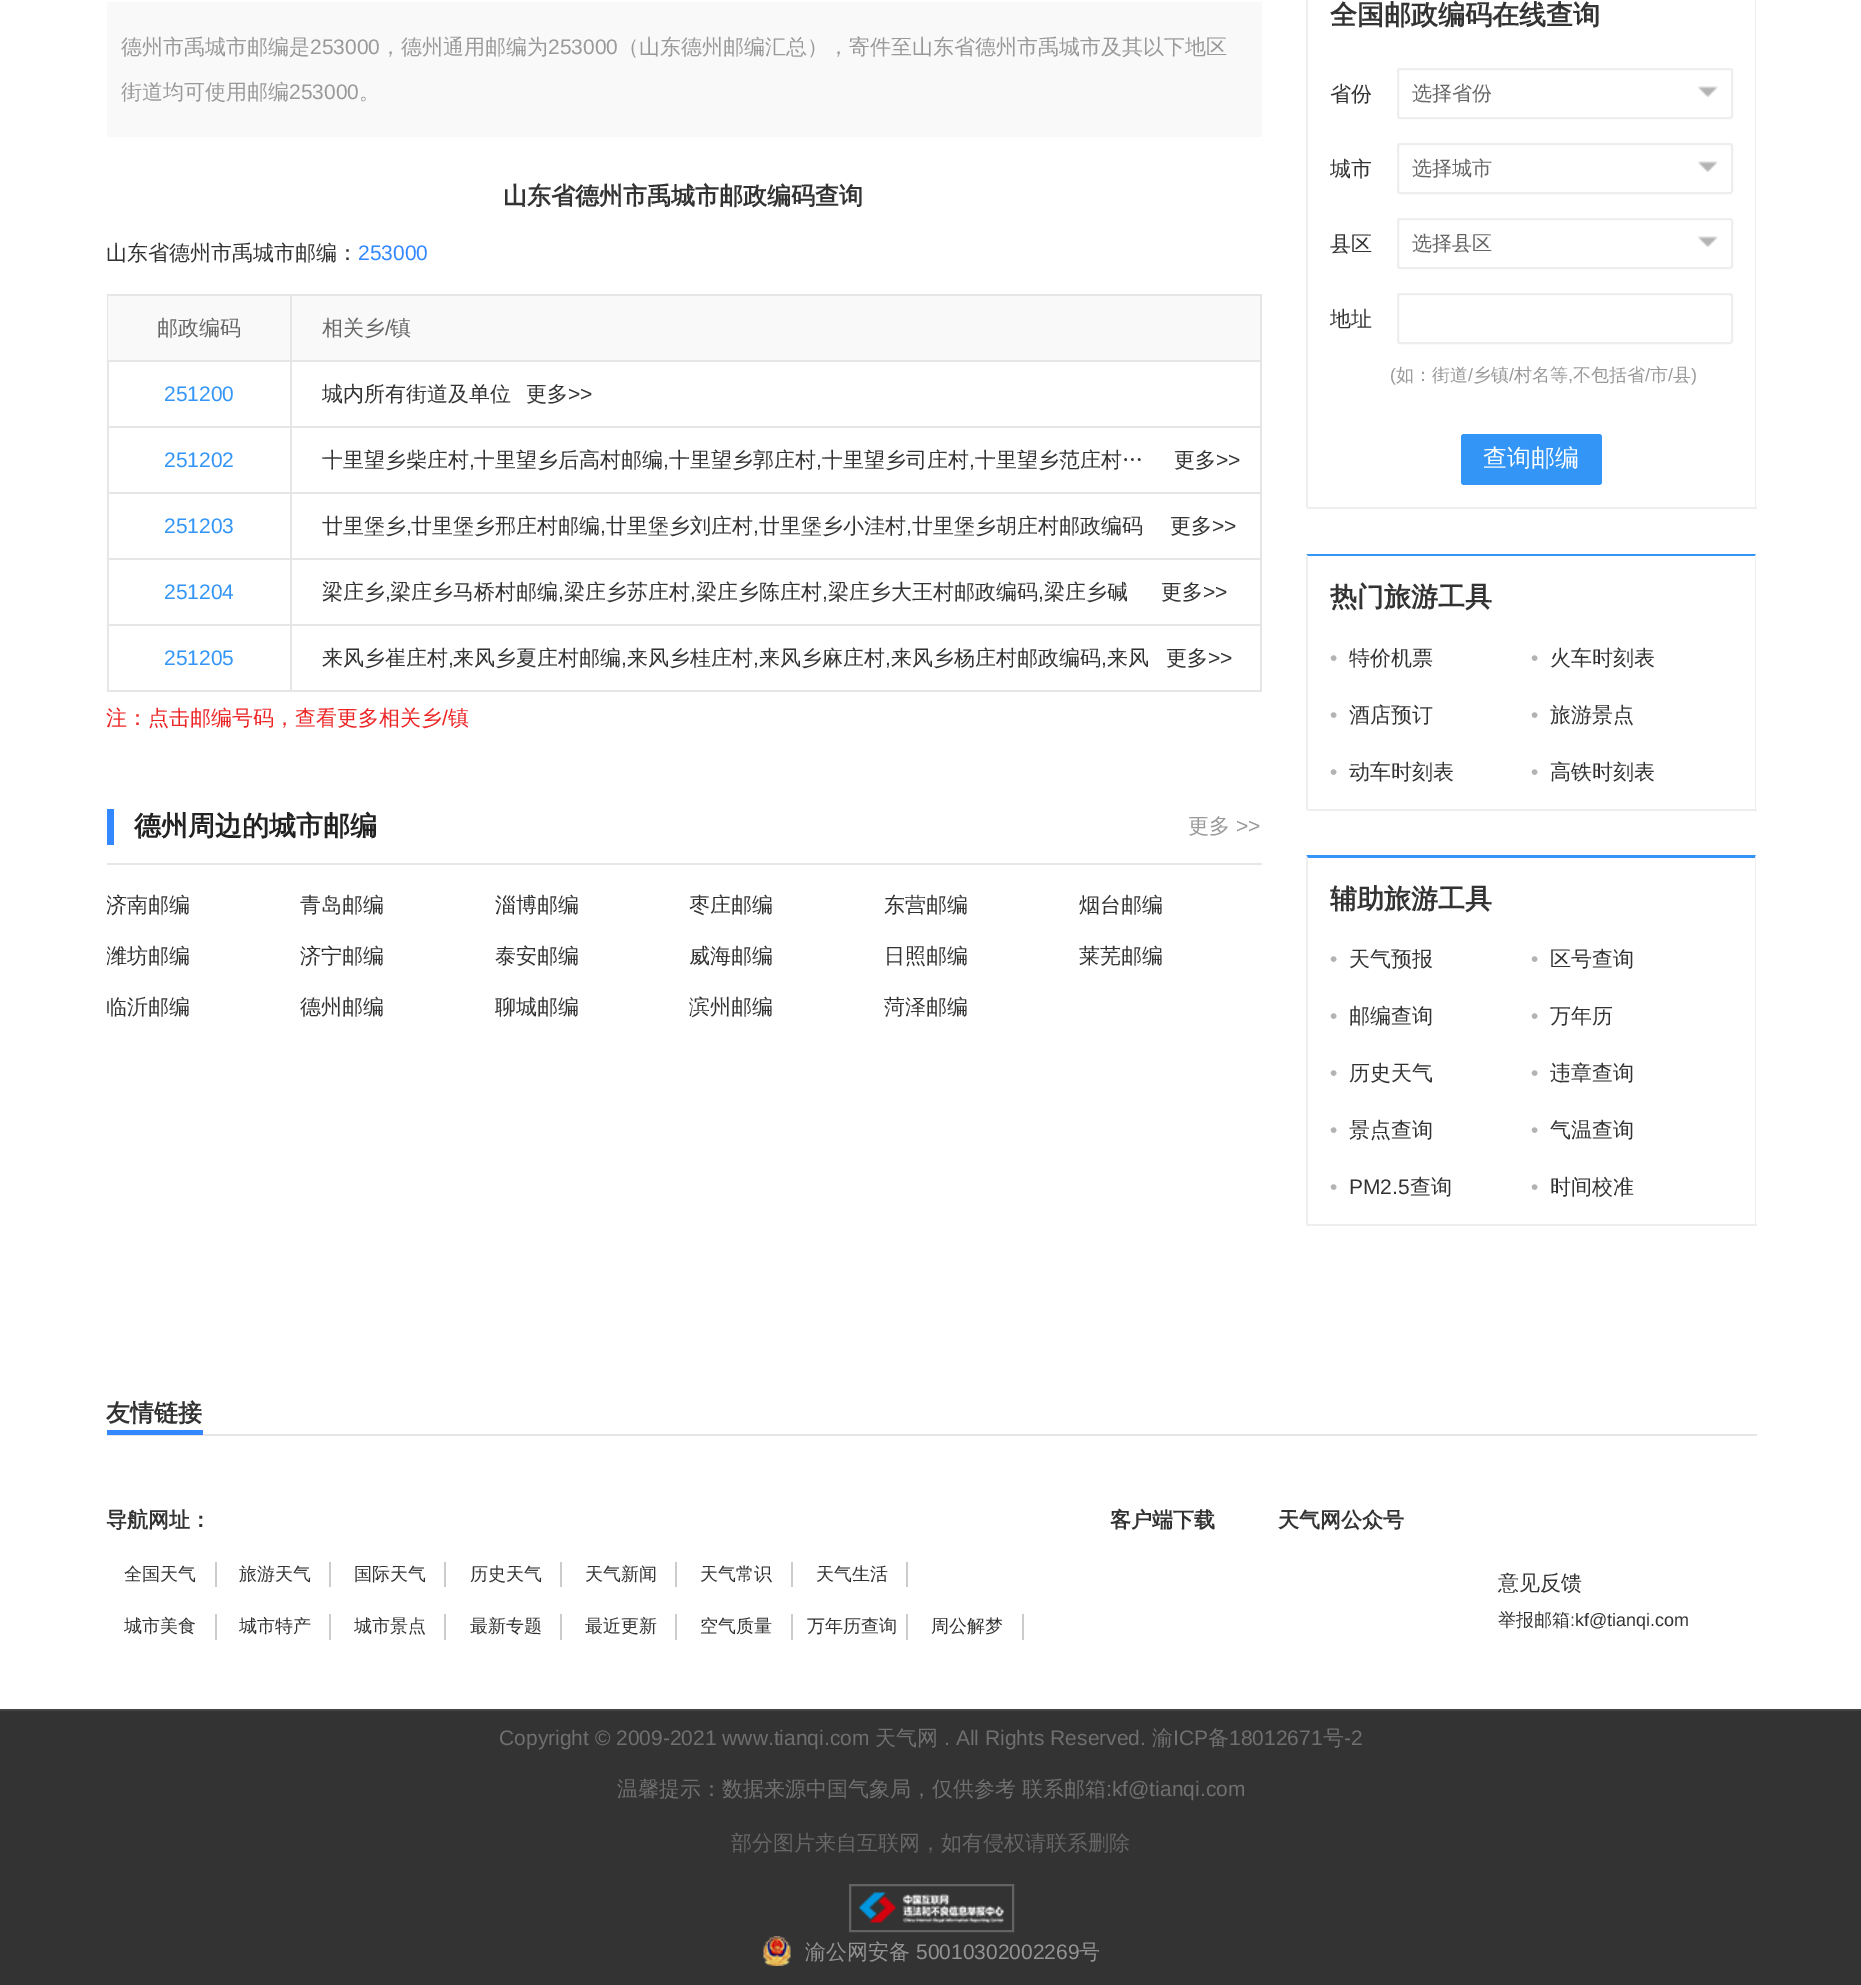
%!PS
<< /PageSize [1861 1985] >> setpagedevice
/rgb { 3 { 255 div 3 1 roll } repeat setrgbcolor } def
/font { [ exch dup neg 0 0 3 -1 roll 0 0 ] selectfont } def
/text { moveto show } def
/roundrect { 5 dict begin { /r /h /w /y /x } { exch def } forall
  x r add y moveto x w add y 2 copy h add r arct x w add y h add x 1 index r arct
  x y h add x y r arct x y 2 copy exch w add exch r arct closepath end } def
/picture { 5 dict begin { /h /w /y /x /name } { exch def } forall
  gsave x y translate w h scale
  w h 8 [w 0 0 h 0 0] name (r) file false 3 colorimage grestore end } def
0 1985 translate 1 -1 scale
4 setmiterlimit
255 255 255 rgb
0 0 1861 1985 rectfill
249 249 249 rgb
107 2 1155 135 rectfill
230 230 230 rgb
107 294 1155 2 rectfill
1260 294 2 398 rectfill
107 294 2 398 rectfill
249 249 249 rgb
108 296 1152 64 rectfill
230 230 230 rgb
108 360 1152 2 rectfill
108 426 1152 2 rectfill
108 492 1152 2 rectfill
108 558 1152 2 rectfill
108 624 1152 2 rectfill
108 690 1152 2 rectfill
290 296 2 396 rectfill
107 863 1155 2 rectfill
51 136 255 rgb
107 809 7 36 rectfill
238 238 238 rgb
1756 -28 moveto 0 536 rlineto -1 -1 rlineto 0 -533 rlineto closepath fill
1307 507 450 2 rectfill
1306 508 moveto 0 -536 rlineto 2 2 rlineto 0 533 rlineto closepath fill
2 setlinewidth
1398 69 334 49 2 roundrect stroke
(img_01.rgb) 1698 86 20 11 picture
1398 144 334 49 2 roundrect stroke
(img_01.rgb) 1698 161 20 11 picture
1398 219 334 49 2 roundrect stroke
(img_01.rgb) 1698 236 20 11 picture
1398 294 334 49 2 roundrect stroke
51 150 247 rgb
1461 434 141 51 3 roundrect fill
1306 554 moveto 450 0 rlineto -1 2 rlineto -447 0 rlineto closepath fill
238 238 238 rgb
1756 554 moveto 0 256 rlineto -1 -2 rlineto 0 -252 rlineto closepath fill
1307 809 450 2 rectfill
1306 810 moveto 0 -256 rlineto 2 2 rlineto 0 252 rlineto closepath fill
51 150 247 rgb
1306 855 moveto 450 0 rlineto -1 3 rlineto -447 0 rlineto closepath fill
238 238 238 rgb
1756 855 moveto 0 371 rlineto -1 -2 rlineto 0 -366 rlineto closepath fill
1307 1224 450 2 rectfill
1306 1226 moveto 0 -371 rlineto 2 3 rlineto 0 366 rlineto closepath fill
230 230 230 rgb
107 1434 1650 2 rectfill
51 136 255 rgb
107 1430 96 5 rectfill
204 204 204 rgb
215 1562 2 25 rectfill
329 1562 2 25 rectfill
444 1562 2 25 rectfill
560 1562 2 25 rectfill
675 1562 2 25 rectfill
791 1562 2 25 rectfill
906 1562 2 25 rectfill
215 1614 2 26 rectfill
329 1614 2 26 rectfill
444 1614 2 26 rectfill
560 1614 2 26 rectfill
675 1614 2 26 rectfill
791 1614 2 26 rectfill
906 1614 2 26 rectfill
1022 1614 2 26 rectfill
51 51 51 rgb
0 1711 1861 274 rectfill
68 68 68 rgb
0 1709 1861 2 rectfill
(img_02.rgb) 859 1892 145 31 picture
99 99 99 rgb
850 1885 163 46 rectstroke
(img_03.rgb) 763 1936 28 30 picture
/WenQuanYiZenHei-Medium 21 font
153 153 153 rgb
(德州市禹城市邮编是) 121 54 text
/LiberationSans-Regular 21 font
(253000) 310 54 text
/WenQuanYiZenHei-Medium 21 font
(，德州通用邮编为) 380 54 text
/LiberationSans-Regular 21 font
(253000) 548 54 text
/WenQuanYiZenHei-Medium 21 font
(（山东德州邮编汇总），寄件至山东省德州市禹城市及其以下地区) 618 54 text
(街道均可使用邮编) 121 99 text
/LiberationSans-Regular 21 font
(253000) 289 99 text
/WenQuanYiZenHei-Medium 21 font
(。) 359 99 text
/WenQuanYiZenHei-Bold 24 font
51 51 51 rgb
(山东省德州市禹城市邮政编码查询) 503 204 text
/WenQuanYiZenHei-Medium 21 font
(山东省德州市禹城市邮编：) 106 260 text
/LiberationSans-Regular 21 font
51 136 255 rgb
(253000) 358 260 text
/WenQuanYiZenHei-Medium 21 font
102 102 102 rgb
(邮政编码) 157 335 text
(相关乡) 322 335 text
/LiberationSans-Regular 21 font
(/) 385 335 text
/WenQuanYiZenHei-Medium 21 font
(镇) 390 335 text
/LiberationSans-Regular 21 font
51 150 247 rgb
(251200) 164 401 text
/WenQuanYiZenHei-Medium 21 font
51 51 51 rgb
(城内所有街道及单位) 322 401 text
(更多) 526 401 text
/LiberationSans-Regular 21 font
(>>) 568 401 text
51 150 247 rgb
(251202) 164 467 text
/WenQuanYiZenHei-Medium 21 font
51 51 51 rgb
(十里望乡柴庄村) 322 467 text
/LiberationSans-Regular 21 font
(,) 469 467 text
/WenQuanYiZenHei-Medium 21 font
(十里望乡后高村邮编) 474 467 text
/LiberationSans-Regular 21 font
(,) 663 467 text
/WenQuanYiZenHei-Medium 21 font
(十里望乡郭庄村) 669 467 text
/LiberationSans-Regular 21 font
(,) 816 467 text
/WenQuanYiZenHei-Medium 21 font
(十里望乡司庄村) 822 467 text
/LiberationSans-Regular 21 font
(,) 969 467 text
/WenQuanYiZenHei-Medium 21 font
(十里望乡范庄村…) 975 467 text
(更多) 1174 467 text
/LiberationSans-Regular 21 font
(>>) 1216 467 text
51 150 247 rgb
(251203) 164 533 text
/WenQuanYiZenHei-Medium 21 font
51 51 51 rgb
(廿里堡乡) 322 533 text
/LiberationSans-Regular 21 font
(,) 406 533 text
/WenQuanYiZenHei-Medium 21 font
(廿里堡乡邢庄村邮编) 411 533 text
/LiberationSans-Regular 21 font
(,) 600 533 text
/WenQuanYiZenHei-Medium 21 font
(廿里堡乡刘庄村) 606 533 text
/LiberationSans-Regular 21 font
(,) 753 533 text
/WenQuanYiZenHei-Medium 21 font
(廿里堡乡小洼村) 759 533 text
/LiberationSans-Regular 21 font
(,) 906 533 text
/WenQuanYiZenHei-Medium 21 font
(廿里堡乡胡庄村邮政编码) 912 533 text
(更多) 1170 533 text
/LiberationSans-Regular 21 font
(>>) 1212 533 text
51 150 247 rgb
(251204) 164 599 text
/WenQuanYiZenHei-Medium 21 font
51 51 51 rgb
(梁庄乡) 322 599 text
/LiberationSans-Regular 21 font
(,) 385 599 text
/WenQuanYiZenHei-Medium 21 font
(梁庄乡马桥村邮编) 390 599 text
/LiberationSans-Regular 21 font
(,) 558 599 text
/WenQuanYiZenHei-Medium 21 font
(梁庄乡苏庄村) 564 599 text
/LiberationSans-Regular 21 font
(,) 690 599 text
/WenQuanYiZenHei-Medium 21 font
(梁庄乡陈庄村) 696 599 text
/LiberationSans-Regular 21 font
(,) 822 599 text
/WenQuanYiZenHei-Medium 21 font
(梁庄乡大王村邮政编码) 828 599 text
/LiberationSans-Regular 21 font
(,) 1038 599 text
/WenQuanYiZenHei-Medium 21 font
(梁庄乡碱) 1044 599 text
(更多) 1161 599 text
/LiberationSans-Regular 21 font
(>>) 1203 599 text
51 150 247 rgb
(251205) 164 665 text
/WenQuanYiZenHei-Medium 21 font
51 51 51 rgb
(来风乡崔庄村) 322 665 text
/LiberationSans-Regular 21 font
(,) 448 665 text
/WenQuanYiZenHei-Medium 21 font
(来风乡夏庄村邮编) 453 665 text
/LiberationSans-Regular 21 font
(,) 621 665 text
/WenQuanYiZenHei-Medium 21 font
(来风乡桂庄村) 627 665 text
/LiberationSans-Regular 21 font
(,) 753 665 text
/WenQuanYiZenHei-Medium 21 font
(来风乡麻庄村) 759 665 text
/LiberationSans-Regular 21 font
(,) 885 665 text
/WenQuanYiZenHei-Medium 21 font
(来风乡杨庄村邮政编码) 891 665 text
/LiberationSans-Regular 21 font
(,) 1101 665 text
/WenQuanYiZenHei-Medium 21 font
(来风) 1107 665 text
(更多) 1166 665 text
/LiberationSans-Regular 21 font
(>>) 1208 665 text
/WenQuanYiZenHei-Medium 21 font
237 36 36 rgb
(注：点击邮编号码，查看更多相关乡) 106 725 text
/LiberationSans-Regular 21 font
(/) 442 725 text
/WenQuanYiZenHei-Medium 21 font
(镇) 448 725 text
/WenQuanYiZenHei-Bold 27 font
34 34 34 rgb
(德州周边的城市邮编) 134 835 text
/WenQuanYiZenHei-Medium 21 font
153 153 153 rgb
(更多) 1188 833 text
/LiberationSans-Regular 21 font
(>>) 1236 833 text
gsave
107 879 171 51 rectclip
/WenQuanYiZenHei-Medium 21 font
51 51 51 rgb
(济南邮编) 106 912 text
grestore
/WenQuanYiZenHei-Medium 21 font
51 51 51 rgb
(青岛邮编) 300 912 text
(淄博邮编) 495 912 text
(枣庄邮编) 689 912 text
(东营邮编) 884 912 text
(烟台邮编) 1079 912 text
gsave
107 930 171 51 rectclip
(潍坊邮编) 106 963 text
grestore
(济宁邮编) 300 963 text
(泰安邮编) 495 963 text
(威海邮编) 689 963 text
(日照邮编) 884 963 text
(莱芜邮编) 1079 963 text
(临沂邮编) 106 1014 text
(德州邮编) 300 1014 text
(聊城邮编) 495 1014 text
(滨州邮编) 689 1014 text
(菏泽邮编) 884 1014 text
/WenQuanYiZenHei-Bold 27 font
(全国邮政编码在线查询) 1330 24 text
/WenQuanYiZenHei-Medium 21 font
(省份) 1330 101 text
/WenQuanYiZenHei-Medium 20 font
102 102 102 rgb
(选择省份) 1412 100 text
/WenQuanYiZenHei-Medium 21 font
51 51 51 rgb
(城市) 1330 176 text
/WenQuanYiZenHei-Medium 20 font
102 102 102 rgb
(选择城市) 1412 175 text
/WenQuanYiZenHei-Medium 21 font
51 51 51 rgb
(县区) 1330 251 text
/WenQuanYiZenHei-Medium 20 font
102 102 102 rgb
(选择县区) 1412 250 text
/WenQuanYiZenHei-Medium 21 font
51 51 51 rgb
(地址) 1330 326 text
/LiberationSans-Regular 18 font
153 153 153 rgb
(\() 1390 381 text
/WenQuanYiZenHei-Medium 18 font
(如：街道) 1396 381 text
/LiberationSans-Regular 18 font
(/) 1468 381 text
/WenQuanYiZenHei-Medium 18 font
(乡镇) 1473 381 text
/LiberationSans-Regular 18 font
(/) 1509 381 text
/WenQuanYiZenHei-Medium 18 font
(村名等) 1514 381 text
/LiberationSans-Regular 18 font
(,) 1568 381 text
/WenQuanYiZenHei-Medium 18 font
(不包括省) 1573 381 text
/LiberationSans-Regular 18 font
(/) 1645 381 text
/WenQuanYiZenHei-Medium 18 font
(市) 1650 381 text
/LiberationSans-Regular 18 font
(/) 1668 381 text
/WenQuanYiZenHei-Medium 18 font
(县) 1673 381 text
/LiberationSans-Regular 18 font
(\)) 1691 381 text
/WenQuanYiZenHei-Medium 24 font
255 255 255 rgb
(查询邮编) 1483 466 text
/WenQuanYiZenHei-Bold 27 font
51 51 51 rgb
(热门旅游工具) 1330 606 text
/LiberationSans-Regular 21 font
179 179 179 rgb
(•) 1330 665 text
/WenQuanYiZenHei-Medium 21 font
51 51 51 rgb
(特价机票) 1349 665 text
/LiberationSans-Regular 21 font
179 179 179 rgb
(•) 1531 665 text
/WenQuanYiZenHei-Medium 21 font
51 51 51 rgb
(火车时刻表) 1550 665 text
/LiberationSans-Regular 21 font
179 179 179 rgb
(•) 1330 722 text
/WenQuanYiZenHei-Medium 21 font
51 51 51 rgb
(酒店预订) 1349 722 text
/LiberationSans-Regular 21 font
179 179 179 rgb
(•) 1531 722 text
/WenQuanYiZenHei-Medium 21 font
51 51 51 rgb
(旅游景点) 1550 722 text
/LiberationSans-Regular 21 font
179 179 179 rgb
(•) 1330 779 text
/WenQuanYiZenHei-Medium 21 font
51 51 51 rgb
(动车时刻表) 1349 779 text
/LiberationSans-Regular 21 font
179 179 179 rgb
(•) 1531 779 text
/WenQuanYiZenHei-Medium 21 font
51 51 51 rgb
(高铁时刻表) 1550 779 text
/WenQuanYiZenHei-Bold 27 font
(辅助旅游工具) 1330 908 text
/LiberationSans-Regular 21 font
179 179 179 rgb
(•) 1330 966 text
/WenQuanYiZenHei-Medium 21 font
51 51 51 rgb
(天气预报) 1349 966 text
/LiberationSans-Regular 21 font
179 179 179 rgb
(•) 1531 966 text
/WenQuanYiZenHei-Medium 21 font
51 51 51 rgb
(区号查询) 1550 966 text
/LiberationSans-Regular 21 font
179 179 179 rgb
(•) 1330 1023 text
/WenQuanYiZenHei-Medium 21 font
51 51 51 rgb
(邮编查询) 1349 1023 text
/LiberationSans-Regular 21 font
179 179 179 rgb
(•) 1531 1023 text
/WenQuanYiZenHei-Medium 21 font
51 51 51 rgb
(万年历) 1550 1023 text
/LiberationSans-Regular 21 font
179 179 179 rgb
(•) 1330 1080 text
/WenQuanYiZenHei-Medium 21 font
51 51 51 rgb
(历史天气) 1349 1080 text
/LiberationSans-Regular 21 font
179 179 179 rgb
(•) 1531 1080 text
/WenQuanYiZenHei-Medium 21 font
51 51 51 rgb
(违章查询) 1550 1080 text
/LiberationSans-Regular 21 font
179 179 179 rgb
(•) 1330 1137 text
/WenQuanYiZenHei-Medium 21 font
51 51 51 rgb
(景点查询) 1349 1137 text
/LiberationSans-Regular 21 font
179 179 179 rgb
(•) 1531 1137 text
/WenQuanYiZenHei-Medium 21 font
51 51 51 rgb
(气温查询) 1550 1137 text
/LiberationSans-Regular 21 font
179 179 179 rgb
(•) 1330 1194 text
51 51 51 rgb
(PM2.5) 1349 1194 text
/WenQuanYiZenHei-Medium 21 font
(查询) 1410 1194 text
/LiberationSans-Regular 21 font
179 179 179 rgb
(•) 1531 1194 text
/WenQuanYiZenHei-Medium 21 font
51 51 51 rgb
(时间校准) 1550 1194 text
/WenQuanYiZenHei-Bold 24 font
(友情链接) 106 1421 text
/WenQuanYiZenHei-Bold 21 font
(导航网址：) 106 1527 text
/WenQuanYiZenHei-Medium 18 font
(全国天气) 124 1580 text
(旅游天气) 239 1580 text
(国际天气) 354 1580 text
(历史天气) 470 1580 text
(天气新闻) 585 1580 text
(天气常识) 700 1580 text
(天气生活) 816 1580 text
(城市美食) 124 1632 text
(城市特产) 239 1632 text
(城市景点) 354 1632 text
(最新专题) 470 1632 text
(最近更新) 585 1632 text
(空气质量) 700 1632 text
(万年历查询) 807 1632 text
(周公解梦) 931 1632 text
/WenQuanYiZenHei-Bold 21 font
(客户端下载) 1110 1527 text
(天气网公众号) 1278 1527 text
/WenQuanYiZenHei-Medium 21 font
(意见反馈) 1498 1590 text
/WenQuanYiZenHei-Medium 18 font
(举报邮箱) 1498 1626 text
/LiberationSans-Regular 18 font
(:kf@tianqi.com) 1570 1626 text
/LiberationSans-Regular 21 font
111 111 111 rgb
(Copyright © 2009-2021 www.tianqi.com) 499 1745 text
/WenQuanYiZenHei-Medium 21 font
(天气网) 875 1745 text
/LiberationSans-Regular 21 font
(. All Rights Reserved.) 944 1745 text
/WenQuanYiZenHei-Medium 21 font
(渝) 1152 1745 text
/LiberationSans-Regular 21 font
(ICP) 1173 1745 text
/WenQuanYiZenHei-Medium 21 font
(备) 1208 1745 text
/LiberationSans-Regular 21 font
(18012671) 1229 1745 text
/WenQuanYiZenHei-Medium 21 font
(号) 1323 1745 text
/LiberationSans-Regular 21 font
(-2) 1344 1745 text
/WenQuanYiZenHei-Medium 21 font
(温馨提示：数据来源中国气象局，仅供参考) 617 1796 text
(联系邮箱) 1022 1796 text
/LiberationSans-Regular 21 font
(:kf@tianqi.com) 1106 1796 text
/WenQuanYiZenHei-Medium 21 font
102 102 102 rgb
(部分图片来自互联网，如有侵权请联系删除) 731 1850 text
147 147 147 rgb
(渝公网安备) 805 1959 text
/LiberationSans-Regular 21 font
(50010302002269) 916 1959 text
/WenQuanYiZenHei-Medium 21 font
(号) 1079 1959 text
showpage
